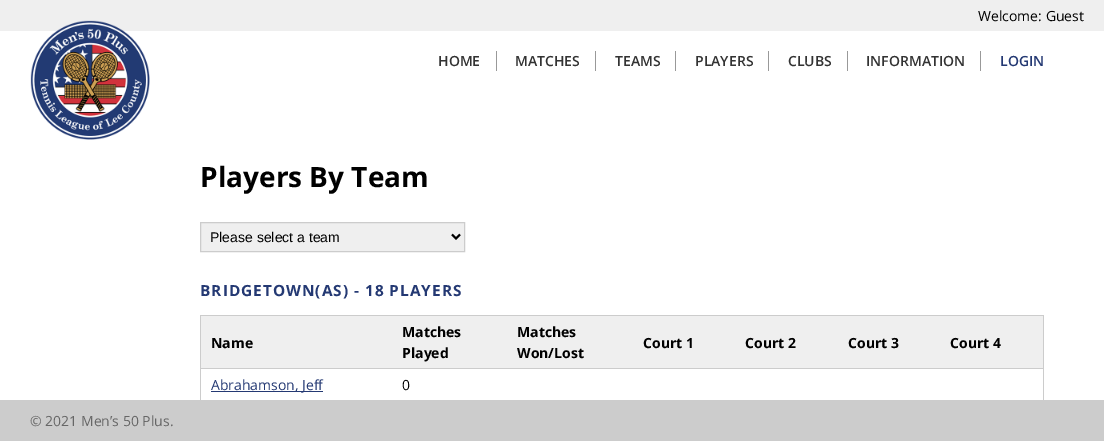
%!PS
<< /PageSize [1104 441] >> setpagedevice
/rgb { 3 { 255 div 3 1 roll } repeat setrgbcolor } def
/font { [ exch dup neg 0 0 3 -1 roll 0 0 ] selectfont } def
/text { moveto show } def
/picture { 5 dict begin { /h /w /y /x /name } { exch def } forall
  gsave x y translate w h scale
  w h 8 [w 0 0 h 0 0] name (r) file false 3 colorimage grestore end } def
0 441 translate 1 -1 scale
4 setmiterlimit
255 255 255 rgb
0 0 1104 441 rectfill
239 239 239 rgb
0 0 1104 31 rectfill
(img_01.rgb) 30 20 120 120 picture
153 153 153 rgb
496 51 1 20 rectfill
595 51 1 20 rectfill
675 51 1 20 rectfill
768 51 1 20 rectfill
847 51 1 20 rectfill
980 51 1 20 rectfill
239 239 239 rgb
200.5 222.5 moveto 264 0 rlineto 0 29 rlineto -264 0 rlineto closepath gsave fill grestore
204 204 204 rgb
stroke
0 0 0 rgb
2 setlinewidth
452 234.5 moveto 4 4 rlineto 4 -4 rlineto stroke
204 204 204 rgb
200 315 844 1 rectfill
1043 315 1 85 rectfill
200 315 1 85 rectfill
239 239 239 rgb
201 316 842 52 rectfill
204 204 204 rgb
200 368 844 1 rectfill
36 57 115 rgb
211 391 112 1 rectfill
204 204 204 rgb
0 400 1104 41 rectfill
/OpenSans-Regular 14 font
0 0 0 rgb
(Welcome: Guest) 978 21 text
/OpenSans-SemiBold 14 font
51 51 51 rgb
(HOME) 438 66 text
(MATCHES) 515 66 text
(TEAMS) 615 66 text
(PLAYERS) 695 66 text
(CLUBS) 788 66 text
(INFORMATION) 866 66 text
36 57 115 rgb
(LOGIN) 1000 66 text
/OpenSans-Bold 28 font
0 0 0 rgb
(Players By Team) 200 187 text
/LiberationSans-Regular 14 font
(Please select a team) 210 242 text
/OpenSans-Bold 15.4 font
36 57 115 rgb
200 296 moveto 1 0 (BRIDGETOWN\(AS\) - 18 PLAYERS) ashow
/OpenSans-Bold 14 font
0 0 0 rgb
(Name) 211 348 text
(Matches) 402 337 text
(Played) 402 358 text
(Matches) 517 337 text
(Won/Lost) 517 358 text
(Court 1) 643 348 text
(Court 2) 745 348 text
(Court 3) 848 348 text
(Court 4) 950 348 text
/OpenSans-Regular 14 font
36 57 115 rgb
(Abrahamson, Jeff) 211 390 text
0 0 0 rgb
(0) 402 390 text
102 102 102 rgb
(© 2021 Men’s 50 Plus.) 30 426 text
showpage
